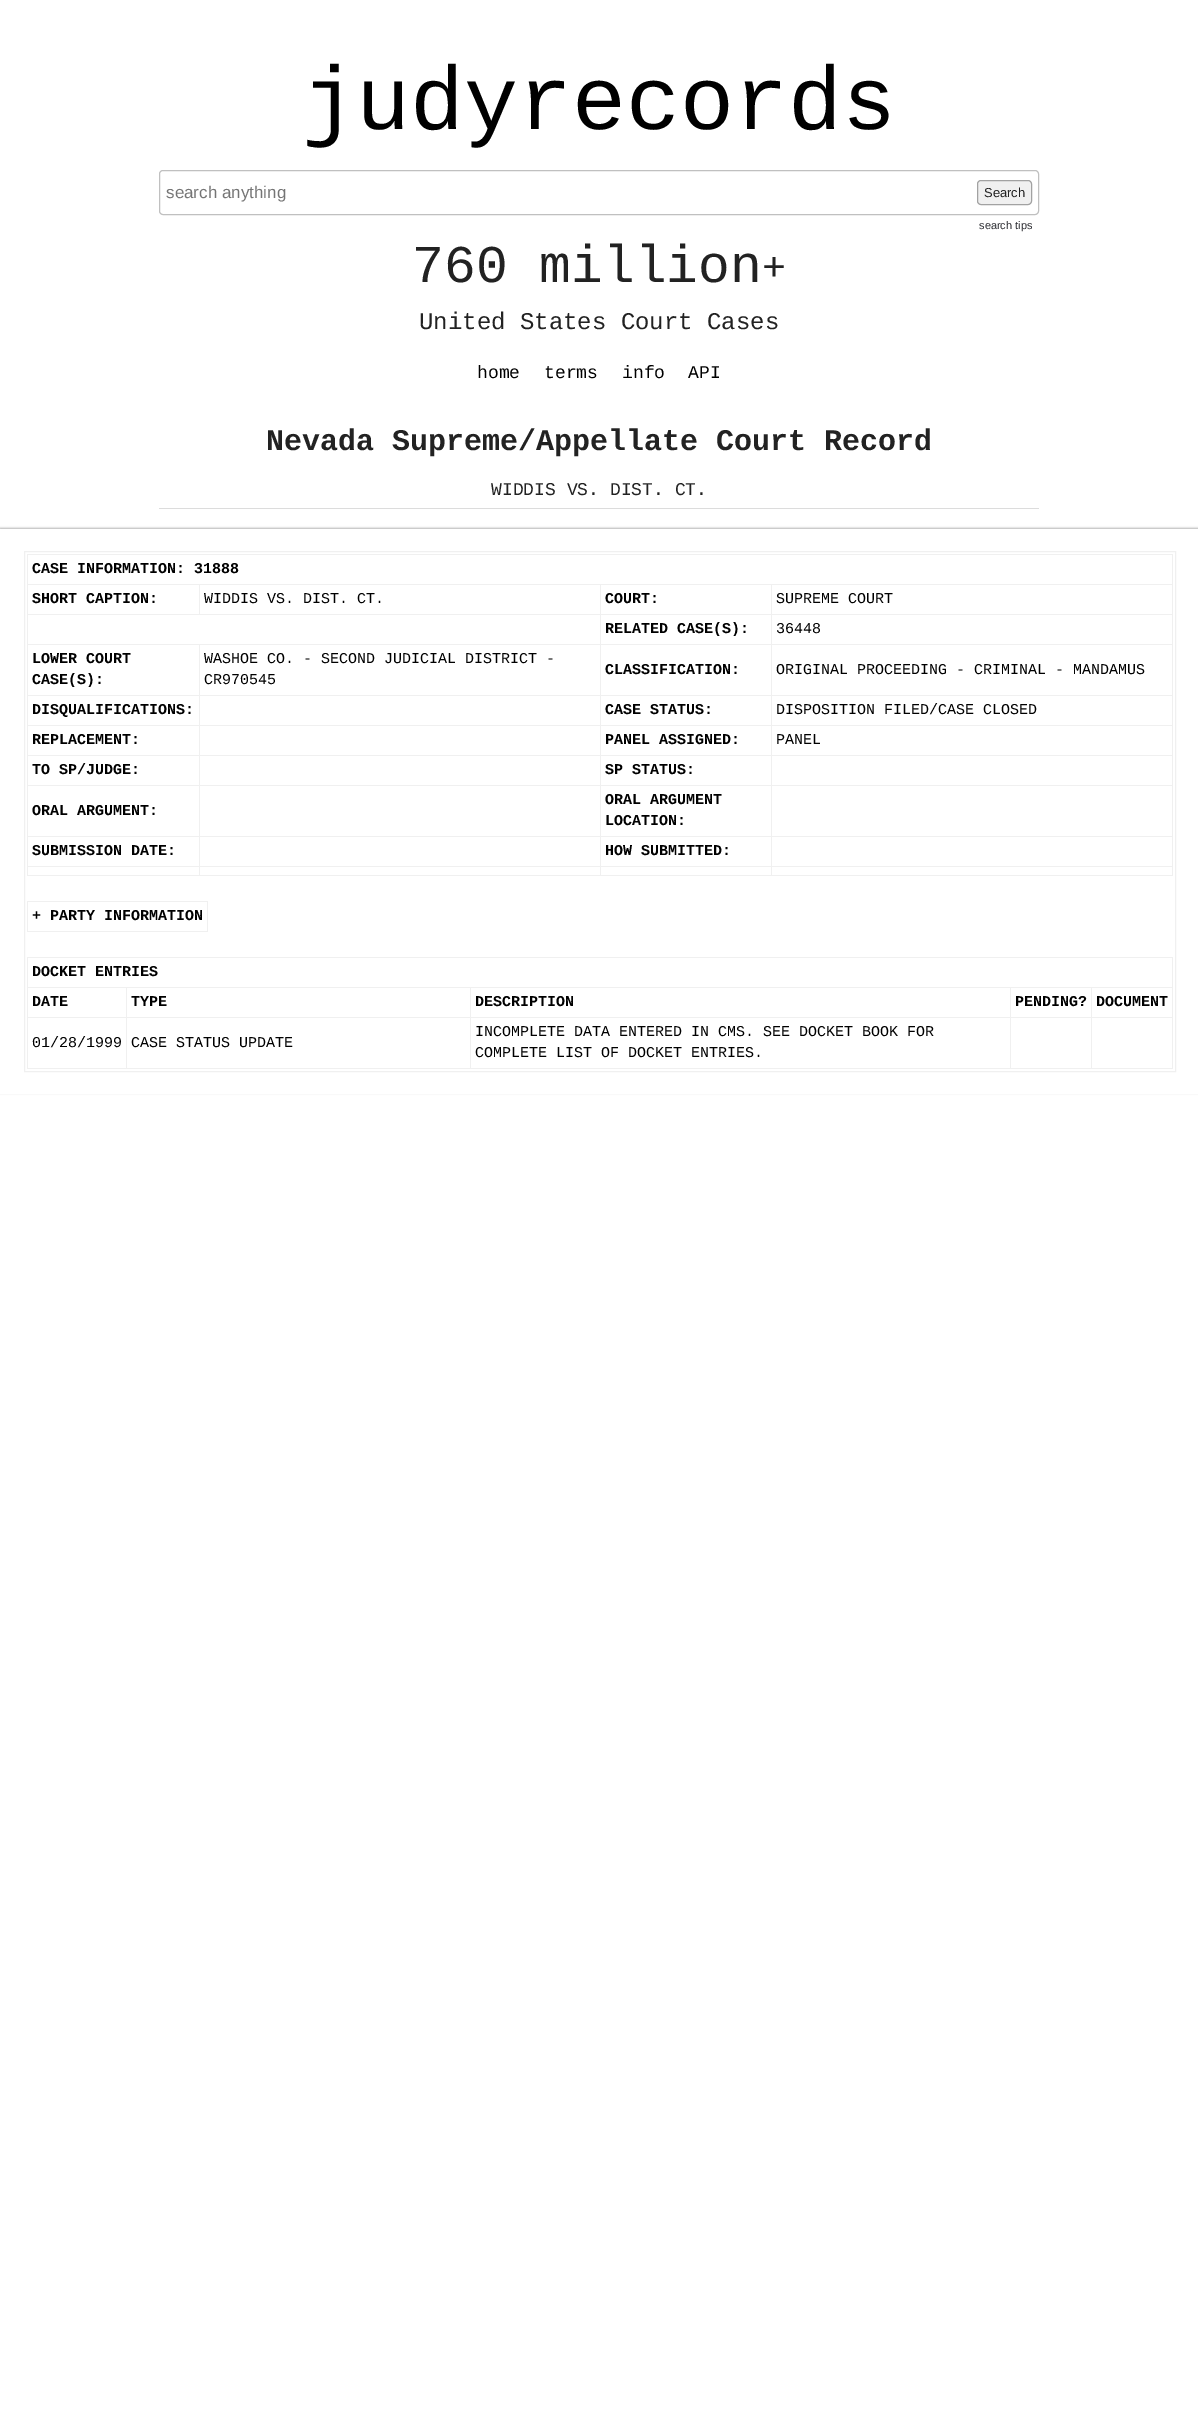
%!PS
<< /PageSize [1198 2412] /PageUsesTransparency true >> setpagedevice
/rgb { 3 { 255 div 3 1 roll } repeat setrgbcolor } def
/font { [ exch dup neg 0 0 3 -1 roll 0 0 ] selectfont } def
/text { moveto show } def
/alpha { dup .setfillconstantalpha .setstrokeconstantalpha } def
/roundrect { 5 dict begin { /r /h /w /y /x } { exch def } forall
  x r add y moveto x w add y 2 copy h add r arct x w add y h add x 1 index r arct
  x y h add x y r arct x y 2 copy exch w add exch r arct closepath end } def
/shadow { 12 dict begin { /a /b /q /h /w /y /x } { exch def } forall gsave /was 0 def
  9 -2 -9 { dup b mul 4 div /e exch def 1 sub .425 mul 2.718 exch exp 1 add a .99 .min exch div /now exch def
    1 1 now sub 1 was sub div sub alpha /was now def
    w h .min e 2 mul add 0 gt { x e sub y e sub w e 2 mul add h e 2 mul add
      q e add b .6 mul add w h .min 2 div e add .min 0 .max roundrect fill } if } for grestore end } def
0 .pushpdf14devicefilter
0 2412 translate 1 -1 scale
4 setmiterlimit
255 255 255 rgb
0 0 1198 2412 rectfill
220 220 220 rgb
159 508 880 1 rectfill
192 192 192 rgb
159.5 170.5 879 44 3.5 roundrect stroke
240 240 240 rgb
977.5 180.5 54 24 3.5 roundrect gsave fill grestore
162 162 162 rgb
stroke
0 0 0 rgb
0 528 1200 565 0 1 0.3 shadow
255 255 255 rgb
0 529 1198 565 rectfill
240 240 240 rgb
24.5 551.5 1151 520 rectstroke
27 554 1146 1 rectfill
1172 554 1 322 rectfill
27 875 1146 1 rectfill
27 554 1 322 rectfill
771 584 402 1 rectfill
771 614 402 1 rectfill
771 644 402 1 rectfill
771 695 402 1 rectfill
771 725 402 1 rectfill
771 755 402 1 rectfill
771 785 402 1 rectfill
771 836 402 1 rectfill
771 866 402 1 rectfill
771 866 1 10 rectfill
600 866 172 1 rectfill
771 836 1 31 rectfill
600 836 172 1 rectfill
771 785 1 52 rectfill
600 785 172 1 rectfill
771 755 1 31 rectfill
600 755 172 1 rectfill
771 725 1 31 rectfill
600 725 172 1 rectfill
771 695 1 31 rectfill
600 695 172 1 rectfill
771 644 1 52 rectfill
600 644 172 1 rectfill
771 614 1 31 rectfill
600 614 172 1 rectfill
771 584 1 31 rectfill
600 584 172 1 rectfill
600 866 1 10 rectfill
199 866 402 1 rectfill
600 836 1 31 rectfill
199 836 402 1 rectfill
600 785 1 52 rectfill
199 785 402 1 rectfill
600 755 1 31 rectfill
199 755 402 1 rectfill
600 725 1 31 rectfill
199 725 402 1 rectfill
600 695 1 31 rectfill
199 695 402 1 rectfill
600 644 1 52 rectfill
199 644 402 1 rectfill
600 614 1 31 rectfill
27 614 574 1 rectfill
600 584 1 31 rectfill
199 584 402 1 rectfill
199 584 1 31 rectfill
27 584 173 1 rectfill
199 866 1 10 rectfill
27 866 173 1 rectfill
199 836 1 31 rectfill
27 836 173 1 rectfill
199 785 1 52 rectfill
27 785 173 1 rectfill
199 755 1 31 rectfill
27 755 173 1 rectfill
199 725 1 31 rectfill
27 725 173 1 rectfill
199 695 1 31 rectfill
27 695 173 1 rectfill
199 644 1 52 rectfill
27 644 173 1 rectfill
27 901 181 1 rectfill
207 901 1 31 rectfill
27 931 181 1 rectfill
27 901 1 31 rectfill
27 957 1146 1 rectfill
1172 957 1 112 rectfill
27 1068 1146 1 rectfill
27 957 1 112 rectfill
1091 987 82 1 rectfill
1091 1017 82 1 rectfill
1091 1017 1 52 rectfill
1010 1017 82 1 rectfill
1091 987 1 31 rectfill
1010 987 82 1 rectfill
1010 1017 1 52 rectfill
470 1017 541 1 rectfill
1010 987 1 31 rectfill
470 987 541 1 rectfill
470 1017 1 52 rectfill
126 1017 345 1 rectfill
470 987 1 31 rectfill
126 987 345 1 rectfill
126 1017 1 52 rectfill
27 1017 100 1 rectfill
126 987 1 31 rectfill
27 987 100 1 rectfill
/LiberationMono-Regular 90 font
0 0 0 rgb
(judyrecords) 302 129 text
/LiberationSans-Regular 17 font
117 117 117 rgb
(search anything) 166 198 text
/LiberationSans-Regular 13 font
34 34 34 rgb
(Search) 984 197 text
/LiberationSans-Regular 11 font
43 44 49 rgb
(search tips) 979 229 text
/LiberationMono-Regular 53 font
34 34 34 rgb
(760 million) 412 282 text
/LiberationMono-Regular 40 font
(+) 762 280 text
/LiberationMono-Regular 24 font
(United States Court Cases) 419 329 text
/LiberationMono-Regular 18 font
0 0 0 rgb
(home) 477 378 text
(terms) 544 378 text
(info) 622 378 text
(API) 688 378 text
/LiberationMono-Bold 30 font
34 34 34 rgb
(Nevada Supreme/Appellate Court Record) 266 450 text
/LiberationMono-Regular 18 font
(WIDDIS VS. DIST. CT.) 491 495 text
/LiberationMono-Bold 15 font
0 0 0 rgb
(CASE INFORMATION: 31888) 32 573 text
(SHORT CAPTION:) 32 603 text
/LiberationMono-Regular 15 font
(WIDDIS VS. DIST. CT.) 204 603 text
/LiberationMono-Bold 15 font
(COURT:) 605 603 text
/LiberationMono-Regular 15 font
(SUPREME COURT) 776 603 text
/LiberationMono-Bold 15 font
(RELATED CASE\(S\):) 605 633 text
/LiberationMono-Regular 15 font
(36448) 776 633 text
/LiberationMono-Bold 15 font
(LOWER COURT) 32 663 text
(CASE\(S\):) 32 684 text
/LiberationMono-Regular 15 font
(WASHOE CO. - SECOND JUDICIAL DISTRICT -) 204 663 text
(CR970545) 204 684 text
/LiberationMono-Bold 15 font
(CLASSIFICATION:) 605 674 text
/LiberationMono-Regular 15 font
(ORIGINAL PROCEEDING - CRIMINAL - MANDAMUS) 776 674 text
/LiberationMono-Bold 15 font
(DISQUALIFICATIONS:) 32 714 text
(CASE STATUS:) 605 714 text
/LiberationMono-Regular 15 font
(DISPOSITION FILED/CASE CLOSED) 776 714 text
/LiberationMono-Bold 15 font
(REPLACEMENT:) 32 744 text
(PANEL ASSIGNED:) 605 744 text
/LiberationMono-Regular 15 font
(PANEL) 776 744 text
/LiberationMono-Bold 15 font
(TO SP/JUDGE:) 32 774 text
(SP STATUS:) 605 774 text
(ORAL ARGUMENT:) 32 815 text
(ORAL ARGUMENT) 605 804 text
(LOCATION:) 605 825 text
(SUBMISSION DATE:) 32 855 text
(HOW SUBMITTED:) 605 855 text
(+ PARTY INFORMATION) 32 920 text
(DOCKET ENTRIES) 32 976 text
(DESCRIPTION) 475 1006 text
(DATE) 32 1006 text
(TYPE) 131 1006 text
(PENDING? DOCUMENT) 1015 1006 text
/LiberationMono-Regular 15 font
(INCOMPLETE DATA ENTERED IN CMS. SEE DOCKET BOOK FOR) 475 1036 text
(COMPLETE LIST OF DOCKET ENTRIES.) 475 1057 text
(01/28/1999 CASE STATUS UPDATE) 32 1047 text
.poppdf14devicefilter showpage
